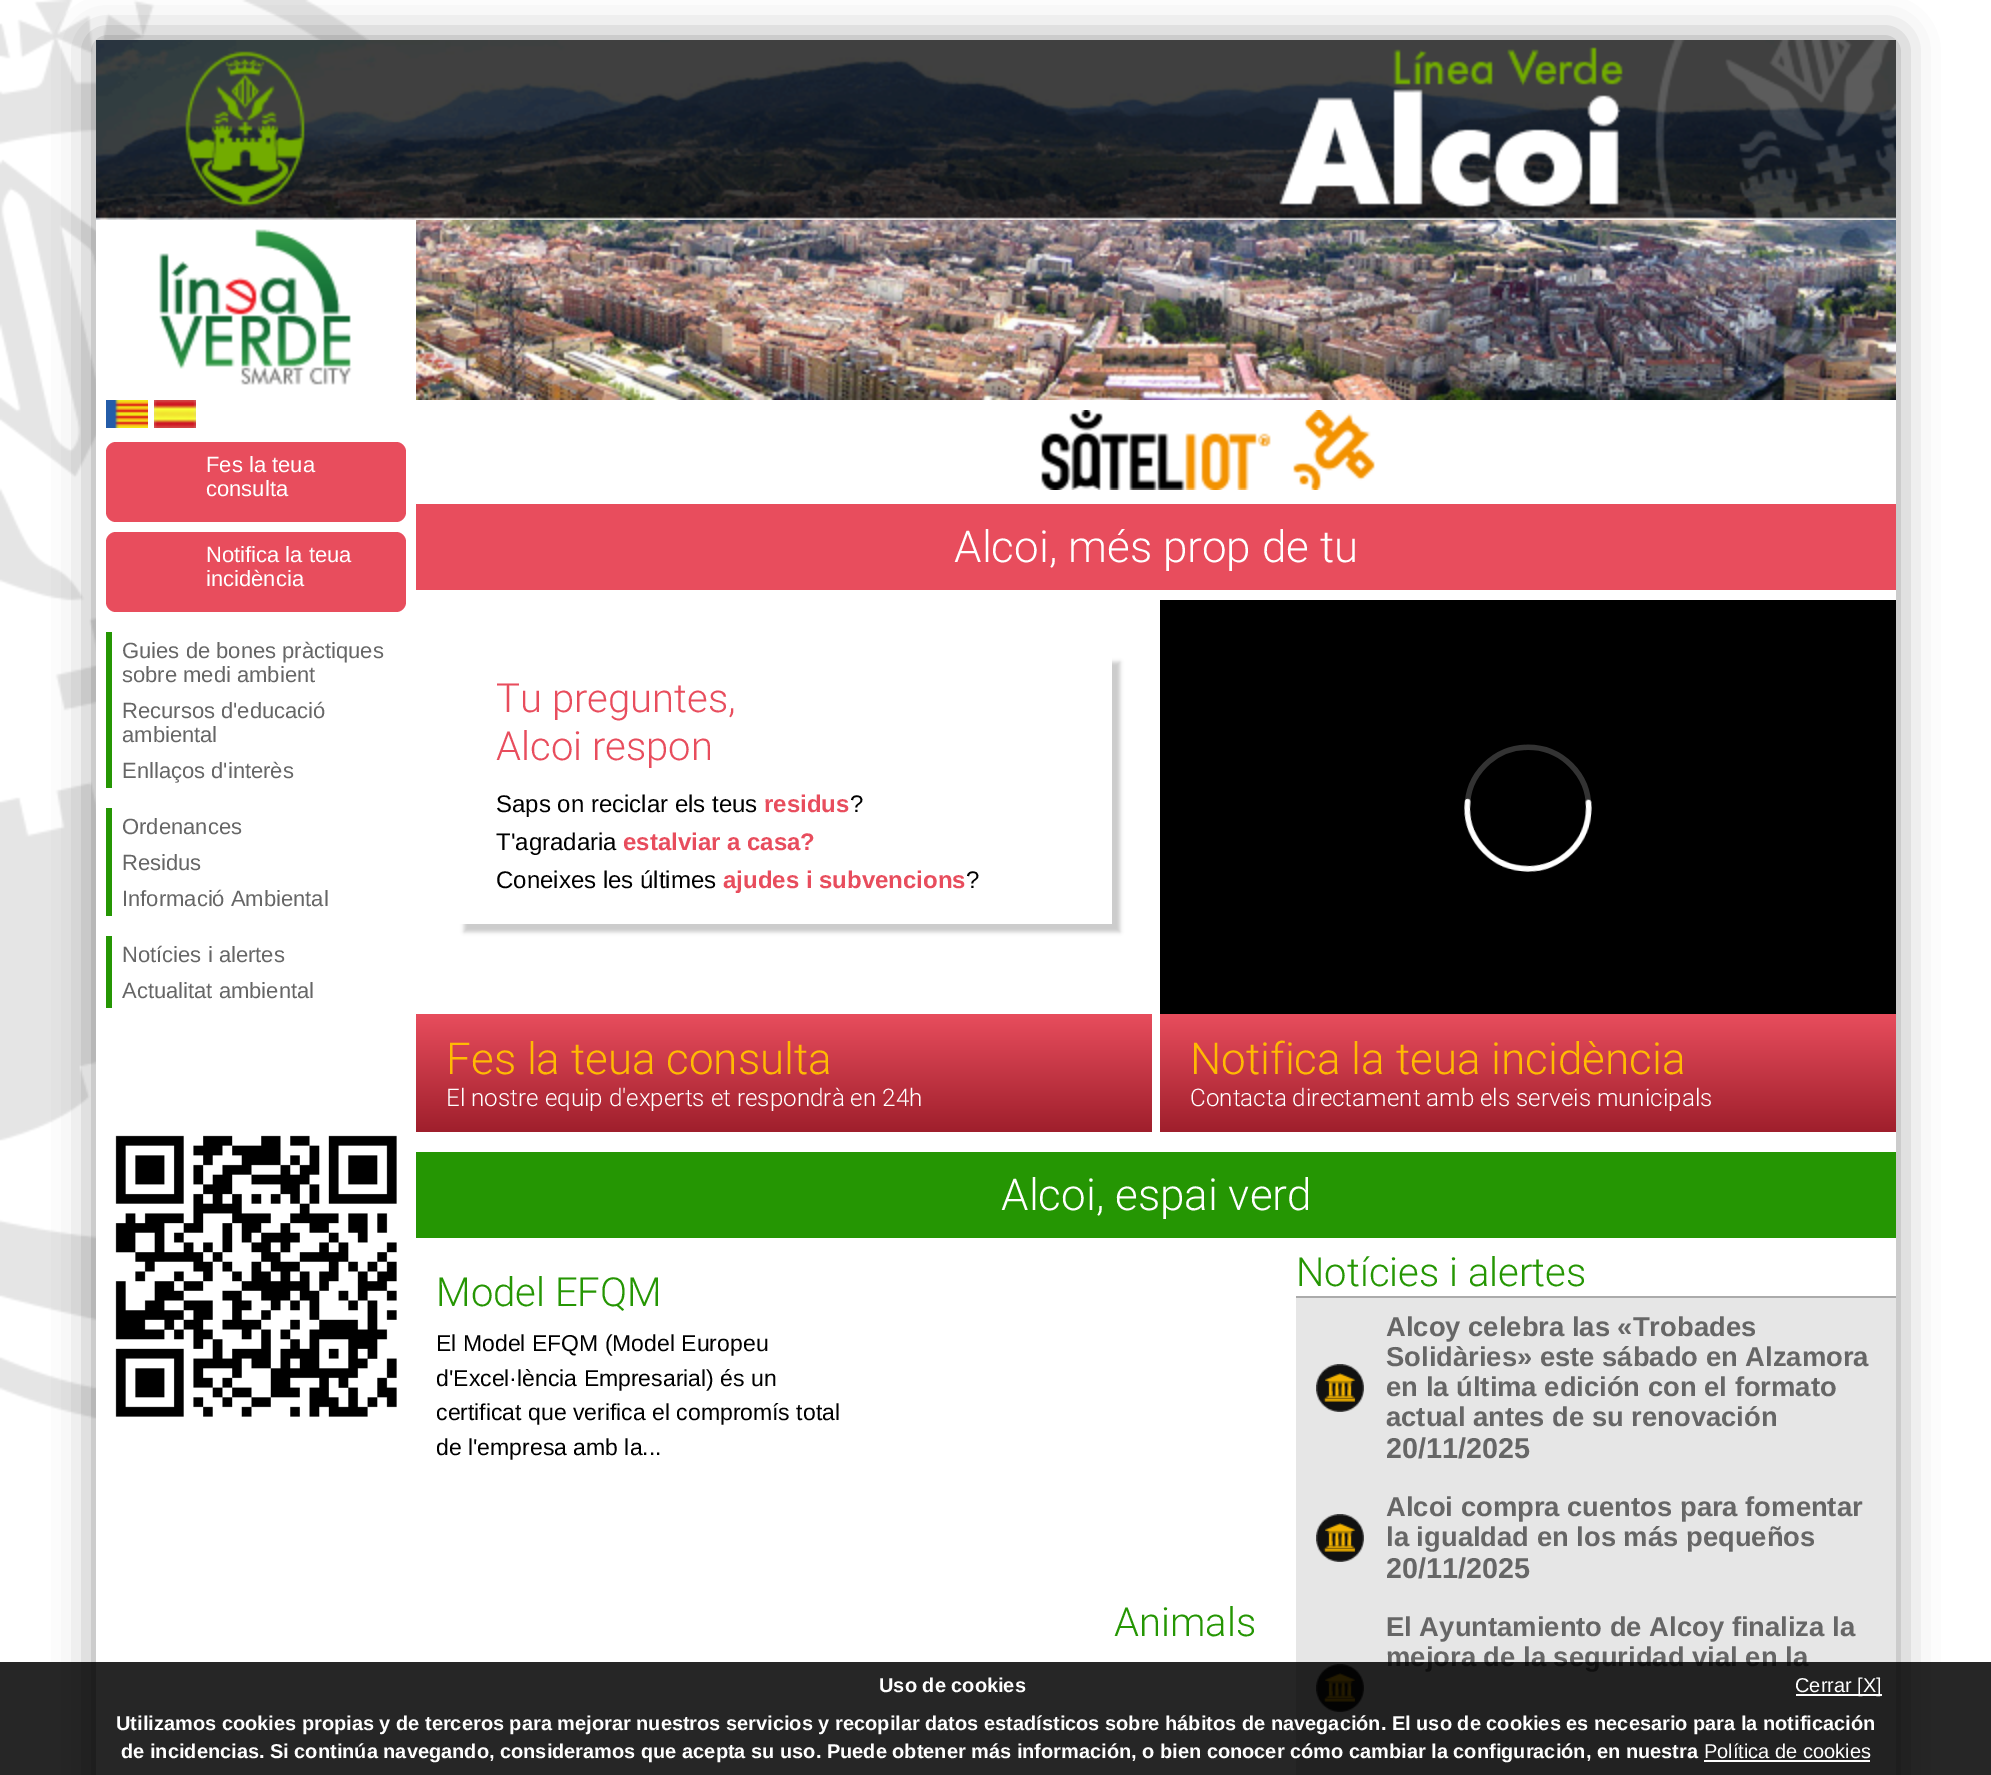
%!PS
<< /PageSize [1991 1775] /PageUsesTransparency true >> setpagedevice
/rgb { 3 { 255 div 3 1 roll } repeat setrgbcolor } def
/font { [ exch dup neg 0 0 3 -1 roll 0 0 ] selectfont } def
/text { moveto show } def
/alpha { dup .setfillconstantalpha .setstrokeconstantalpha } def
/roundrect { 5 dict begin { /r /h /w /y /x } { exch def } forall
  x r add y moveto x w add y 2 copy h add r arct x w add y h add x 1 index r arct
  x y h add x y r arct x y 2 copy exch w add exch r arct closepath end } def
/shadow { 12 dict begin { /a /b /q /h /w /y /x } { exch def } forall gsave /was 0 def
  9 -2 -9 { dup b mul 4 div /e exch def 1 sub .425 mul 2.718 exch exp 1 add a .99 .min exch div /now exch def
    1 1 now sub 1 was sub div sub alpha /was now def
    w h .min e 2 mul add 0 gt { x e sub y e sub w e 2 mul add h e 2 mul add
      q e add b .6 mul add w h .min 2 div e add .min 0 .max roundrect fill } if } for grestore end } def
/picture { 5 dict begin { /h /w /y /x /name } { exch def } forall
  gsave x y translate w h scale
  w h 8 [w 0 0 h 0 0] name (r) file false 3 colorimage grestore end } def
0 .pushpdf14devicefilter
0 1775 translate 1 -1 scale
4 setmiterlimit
255 255 255 rgb
0 0 1991 1775 rectfill
(img_01.rgb) 0 0 369 1419 picture
0 0 0 rgb
96 40 1800 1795 0 20 0.4 shadow
255 255 255 rgb
96 220 1800 1555 rectfill
(img_02.rgb) 96 40 1800 180 picture
(img_03.rgb) 159 229 193 156 picture
(img_04.rgb) 416 220 1480 180 picture
(img_05.rgb) 1041 410 334 80 picture
(img_06.rgb) 106 400 42 28 picture
(img_07.rgb) 154 400 42 28 picture
232 77 93 rgb
106 442 300 80 10 roundrect fill
106 532 300 80 10 roundrect fill
37 150 3 rgb
106 632 6 156 rectfill
106 808 6 108 rectfill
106 936 6 72 rectfill
(img_08.rgb) 115 1135 282 282 picture
232 77 93 rgb
416 504 1480 86 rectfill
gsave
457 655 moveto 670 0 rlineto 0 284 rlineto -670 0 rlineto closepath 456 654 moveto 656 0 rlineto 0 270 rlineto -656 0 rlineto closepath eoclip newpath
0 0 0 rgb
464 662 656 270 0 2 0.2 shadow
grestore
gsave 416 1014 moveto 736 0 rlineto 0 118 rlineto -736 0 rlineto closepath clip newpath
<< /ShadingType 2 /ColorSpace /DeviceRGB /Coords [784 1014 784 1132] /Extend [true true] /Function << /FunctionType 2 /Domain [0 1] /C0 [0.91 0.302 0.365] /C1 [0.624 0.122 0.173] /N 1 >> >> shfill grestore
(img_09.rgb) 1160 600 736 414 picture
gsave 1160 1014 moveto 736 0 rlineto 0 118 rlineto -736 0 rlineto closepath clip newpath
<< /ShadingType 2 /ColorSpace /DeviceRGB /Coords [1528 1014 1528 1132] /Extend [true true] /Function << /FunctionType 2 /Domain [0 1] /C0 [0.91 0.302 0.365] /C1 [0.624 0.122 0.173] /N 1 >> >> shfill grestore
37 150 3 rgb
416 1152 1480 86 rectfill
230 230 230 rgb
1296 1298 600 477 rectfill
171 171 171 rgb
1296 1296 600 2 rectfill
(img_10.rgb) 1316 1364 48 48 picture
(img_10.rgb) 1316 1514 48 48 picture
(img_10.rgb) 1316 1664 48 48 picture
/LiberationSans-Regular 22 font
255 255 255 rgb
(Fes la teua) 206 472 text
(consulta) 206 496 text
(Notifica la teua) 206 562 text
(incidència) 206 586 text
102 102 102 rgb
(Guies de bones pràctiques) 122 658 text
(sobre medi ambient) 122 682 text
(Recursos d'educació) 122 718 text
(ambiental) 122 742 text
(Enllaços d'interès) 122 778 text
(Ordenances) 122 834 text
(Residus) 122 870 text
(Informació Ambiental) 122 906 text
(Notícies i alertes) 122 962 text
(Actualitat ambiental) 122 998 text
/Roboto-Light 44 font
255 255 255 rgb
(Alcoi, més prop de tu) 954 562 text
/Roboto-Light 40 font
232 77 93 rgb
(Tu preguntes,) 496 712 text
(Alcoi respon) 496 760 text
/LiberationSans-Regular 24 font
0 0 0 rgb
(Saps on reciclar els teus) 496 812 text
/LiberationSans-Bold 24 font
232 77 93 rgb
(residus) 764 812 text
/LiberationSans-Regular 24 font
0 0 0 rgb
(?) 850 812 text
(T'agradaria) 496 850 text
/LiberationSans-Bold 24 font
232 77 93 rgb
(estalviar a casa?) 623 850 text
/LiberationSans-Regular 24 font
0 0 0 rgb
(Coneixes les últimes) 496 888 text
/LiberationSans-Bold 24 font
232 77 93 rgb
(ajudes i subvencions) 723 888 text
/LiberationSans-Regular 24 font
0 0 0 rgb
(?) 966 888 text
/Roboto-Light 44 font
255 186 3 rgb
(Fes la teua consulta) 446 1074 text
/Roboto-Light 24.2 font
255 255 255 rgb
(El nostre equip d'experts et respondrà en 24h) 446 1106 text
/Roboto-Light 44 font
255 186 3 rgb
(Notifica la teua incidència) 1190 1074 text
/Roboto-Light 24.2 font
255 255 255 rgb
(Contacta directament amb els serveis municipals) 1190 1106 text
/Roboto-Light 44 font
(Alcoi, espai verd) 1001 1210 text
/Roboto-Light 40 font
37 150 3 rgb
(Model EFQM) 436 1306 text
/LiberationSans-Regular 23 font
0 0 0 rgb
(El Model EFQM \(Model Europeu) 436 1351 text
(d'Excel·lència Empresarial\) és un) 436 1386 text
(certificat que verifica el compromís total) 436 1420 text
(de l'empresa amb la...) 436 1455 text
/Roboto-Light 40 font
37 150 3 rgb
(Animals) 1114 1636 text
(Notícies i alertes) 1296 1286 text
/LiberationSans-Bold 27.4 font
102 102 102 rgb
(Alcoy celebra las «Trobades) 1386 1336 text
(Solidàries» este sábado en Alzamora) 1386 1366 text
(en la última edición con el formato) 1386 1396 text
(actual antes de su renovación) 1386 1426 text
/LiberationSans-Bold 28.75 font
(20/11/2025) 1386 1458 text
/LiberationSans-Bold 27.4 font
(Alcoi compra cuentos para fomentar) 1386 1516 text
(la igualdad en los más pequeños) 1386 1546 text
/LiberationSans-Bold 28.75 font
(20/11/2025) 1386 1578 text
/LiberationSans-Bold 27.4 font
(El Ayuntamiento de Alcoy finaliza la) 1386 1636 text
(mejora de la seguridad vial en la) 1386 1666 text
0.85 alpha
0 0 0 rgb
0 1662 1991 113 rectfill
/LiberationSans-Bold 20 font
1 alpha
255 255 255 rgb
(Uso de cookies) 879 1692 text
1796 1694 86 2 rectfill
/LiberationSans-Regular 20 font
(Cerrar [X]) 1795 1692 text
/LiberationSans-Bold 20 font
(Utilizamos cookies propias y de terceros para mejorar nuestros servicios y recopilar datos estadísticos sobre hábitos de navegación. El uso de cookies es necesario para la notificación) 116 1730 text
(de incidencias. Si continúa navegando, consideramos que acepta su uso. Puede obtener más información, o bien conocer cómo cambiar la configuración, en nuestra) 121 1758 text
/LiberationSans-Regular 20 font
(Política de cookies) 1704 1758 text
1704 1760 166 2 rectfill
.poppdf14devicefilter showpage
